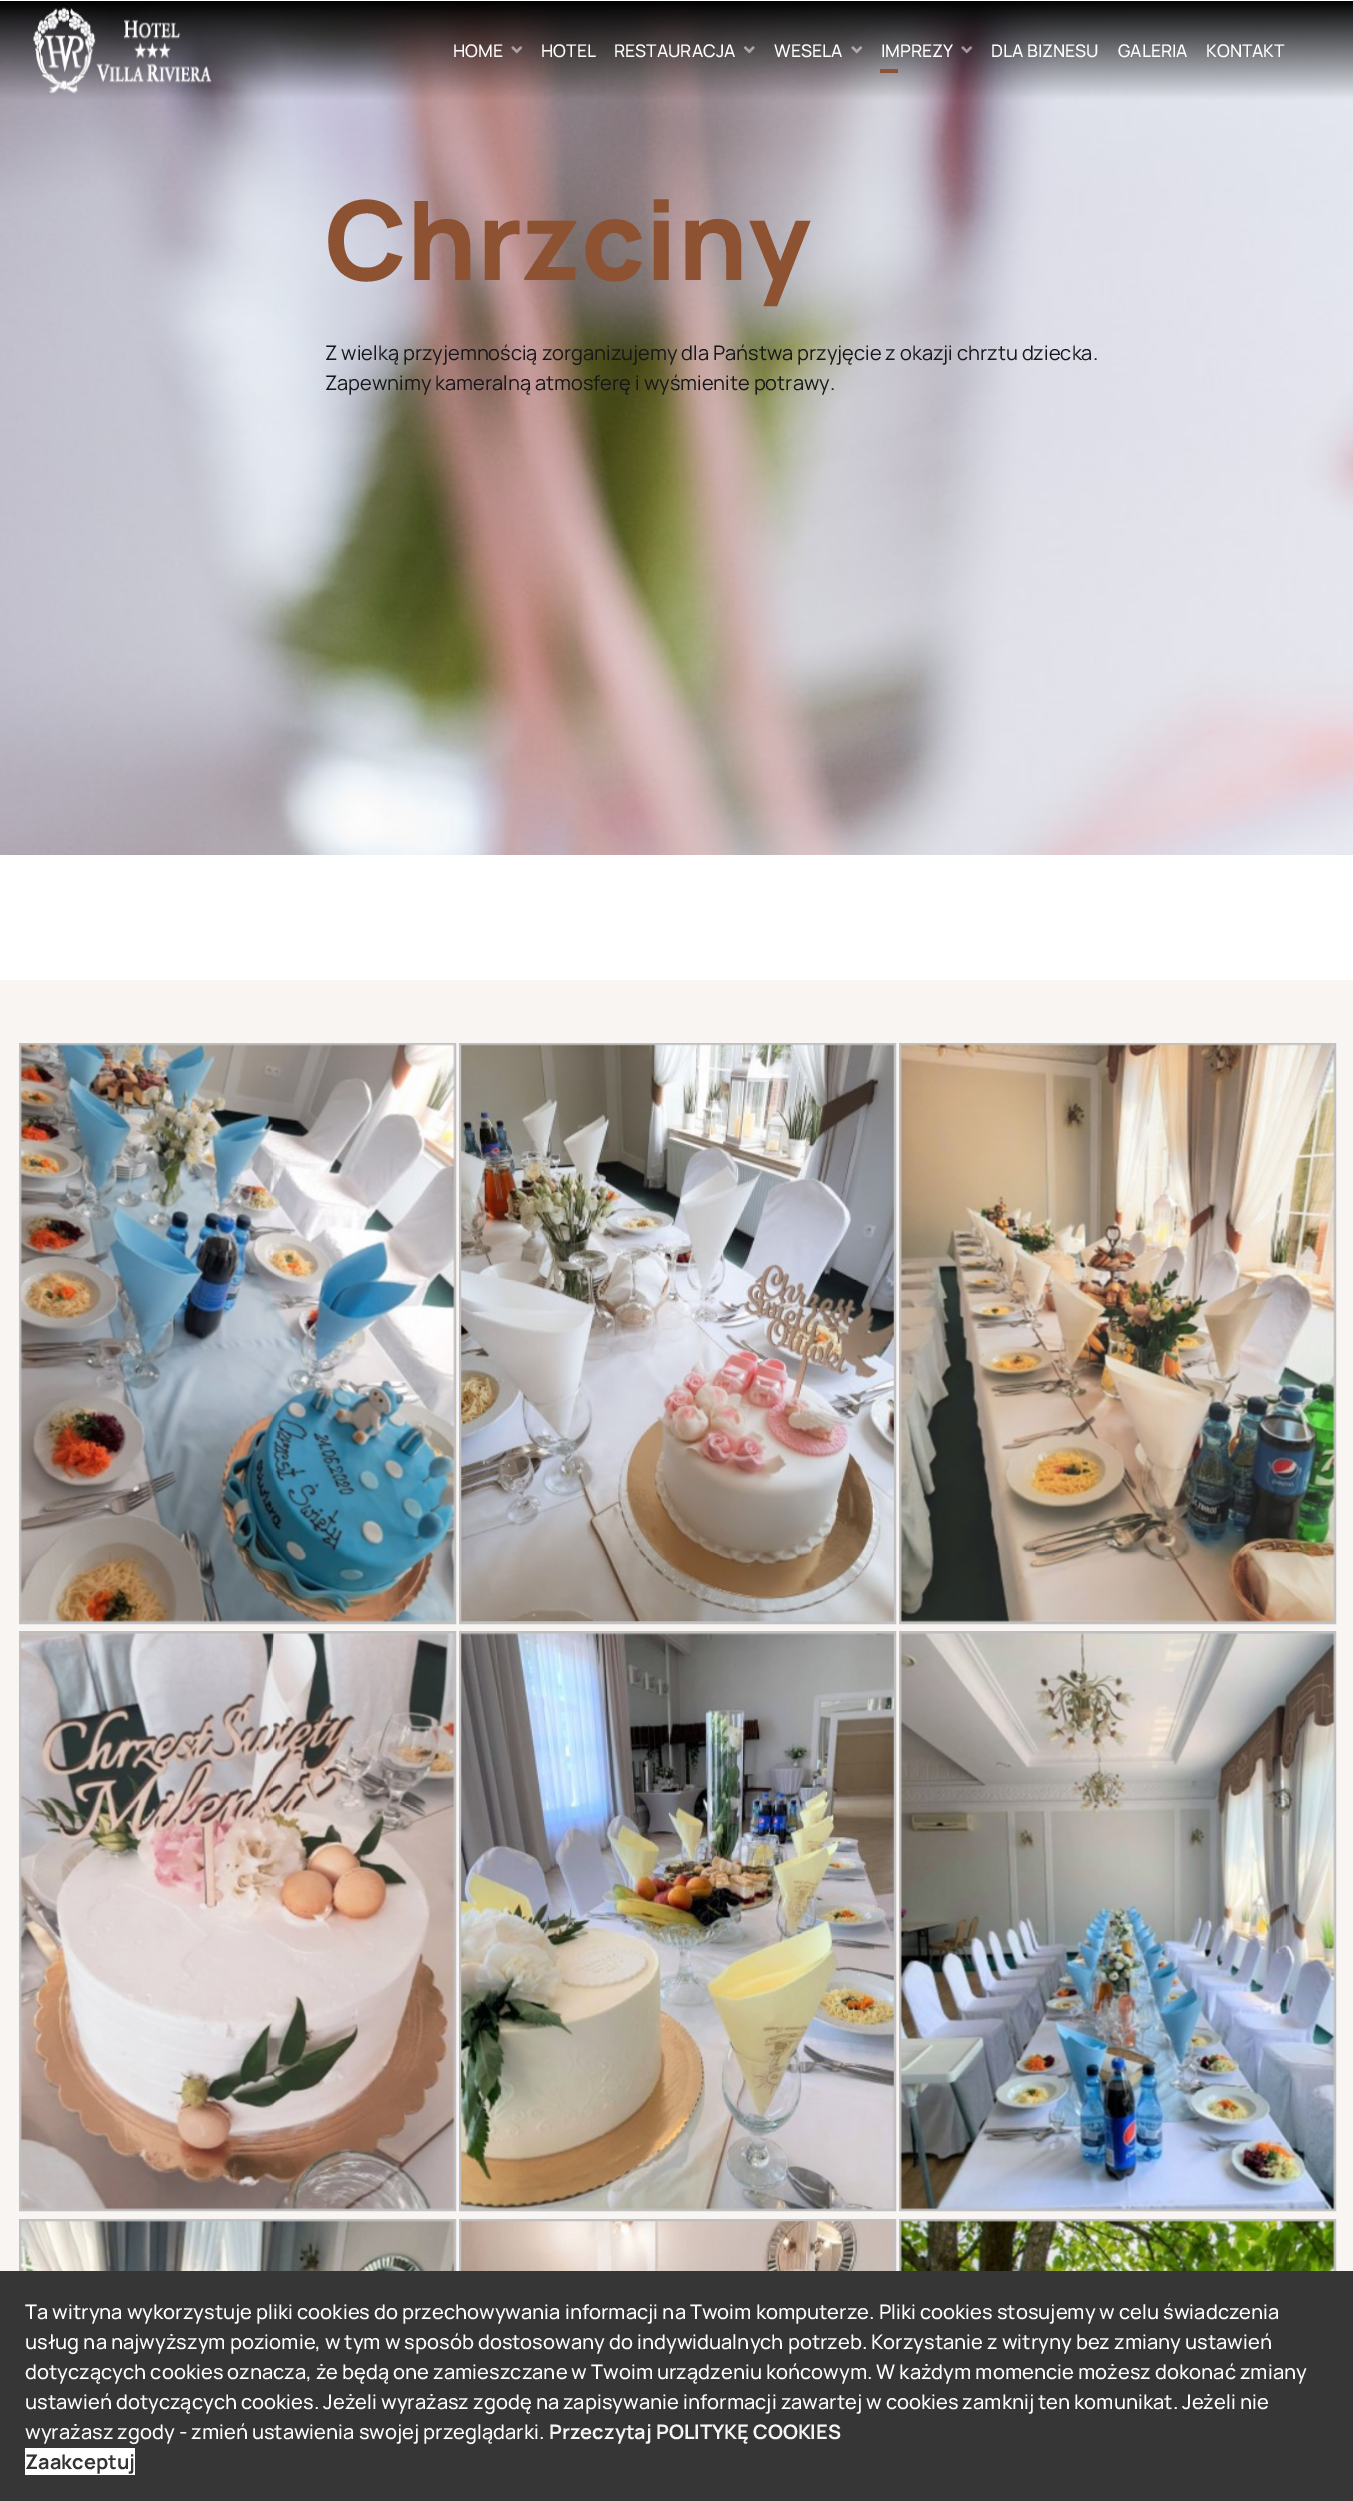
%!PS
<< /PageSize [1353 2501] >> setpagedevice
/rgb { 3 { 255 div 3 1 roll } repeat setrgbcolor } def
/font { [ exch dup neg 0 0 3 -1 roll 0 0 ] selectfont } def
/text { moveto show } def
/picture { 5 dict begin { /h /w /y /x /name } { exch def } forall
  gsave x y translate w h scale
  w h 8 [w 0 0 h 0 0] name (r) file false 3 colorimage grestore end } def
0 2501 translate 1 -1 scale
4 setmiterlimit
255 255 255 rgb
0 0 1353 2501 rectfill
(img_06.rgb) 0 1 1353 854 picture
(img_01.rgb) 33 7 179 87 picture
(img_02.rgb) 511 46 12 8 picture
(img_03.rgb) 743 46 12 8 picture
(img_04.rgb) 851 46 12 8 picture
(img_05.rgb) 961 46 12 8 picture
141 82 50 rgb
880 69 18 4 rectfill
248 245 243 rgb
0 980 1353 1291 rectfill
192 192 192 rgb
3 setlinewidth
20.5 1044.5 434 578 rectstroke
(img_07.rgb) 20 1044 435 578 picture
460.5 1044.5 434 578 rectstroke
(img_08.rgb) 461 1044 433 578 picture
900.5 1044.5 434 578 rectstroke
(img_09.rgb) 900 1044 435 578 picture
20.5 1632.5 434 577 rectstroke
(img_10.rgb) 20 1633 435 577 picture
460.5 1632.5 434 577 rectstroke
(img_11.rgb) 461 1633 433 577 picture
900.5 1632.5 434 577 rectstroke
(img_12.rgb) 900 1633 435 577 picture
20.5 2220.5 434 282 rectstroke
(img_13.rgb) 20 2220 435 51 picture
460.5 2220.5 434 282 rectstroke
(img_14.rgb) 461 2221 433 50 picture
900.5 2220.5 434 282 rectstroke
(img_15.rgb) 900 2220 435 51 picture
54 54 54 rgb
0 2271 1353 230 rectfill
255 255 255 rgb
25 2448 110 27 rectfill
/Manrope-Medium 17.5 font
(HOME) 453 57 text
(HOTEL) 541 57 text
(RESTAURACJA) 614 57 text
(WESELA) 774 57 text
(IMPREZY) 881 57 text
(DLA BIZNESU) 991 57 text
(GALERIA) 1118 57 text
(KONTAKT) 1206 57 text
/Manrope-ExtraBold 110 font
141 82 50 rgb
(Chrzciny) 325 280 text
/Manrope-Regular 20 font
23 22 26 rgb
(Z wielką przyjemnością zorganizujemy dla Państwa przyjęcie z okazji chrztu dziecka.) 325 360 text
(Zapewnimy kameralną atmosferę i wyśmienite potrawy.) 325 390 text
/Manrope-Medium 20 font
255 255 255 rgb
(Ta witryna wykorzystuje pliki cookies do przechowywania informacji na Twoim komputerze. Pliki cookies stosujemy w celu świadczenia) 25 2319 text
(usług na najwyższym poziomie, w tym w sposób dostosowany do indywidualnych potrzeb. Korzystanie z witryny bez zmiany ustawień) 25 2349 text
(dotyczących cookies oznacza, że będą one zamieszczane w Twoim urządzeniu końcowym. W każdym momencie możesz dokonać zmiany) 25 2379 text
(ustawień dotyczących cookies. Jeżeli wyrażasz zgodę na zapisywanie informacji zawartej w cookies zamknij ten komunikat. Jeżeli nie) 25 2409 text
(wyrażasz zgody - zmień ustawienia swojej przeglądarki.) 25 2439 text
/Manrope-Bold 20 font
245 245 245 rgb
(Przeczytaj POLITYKĘ COOKIES) 549 2439 text
51 51 51 rgb
(Zaakceptuj) 25 2469 text
showpage
